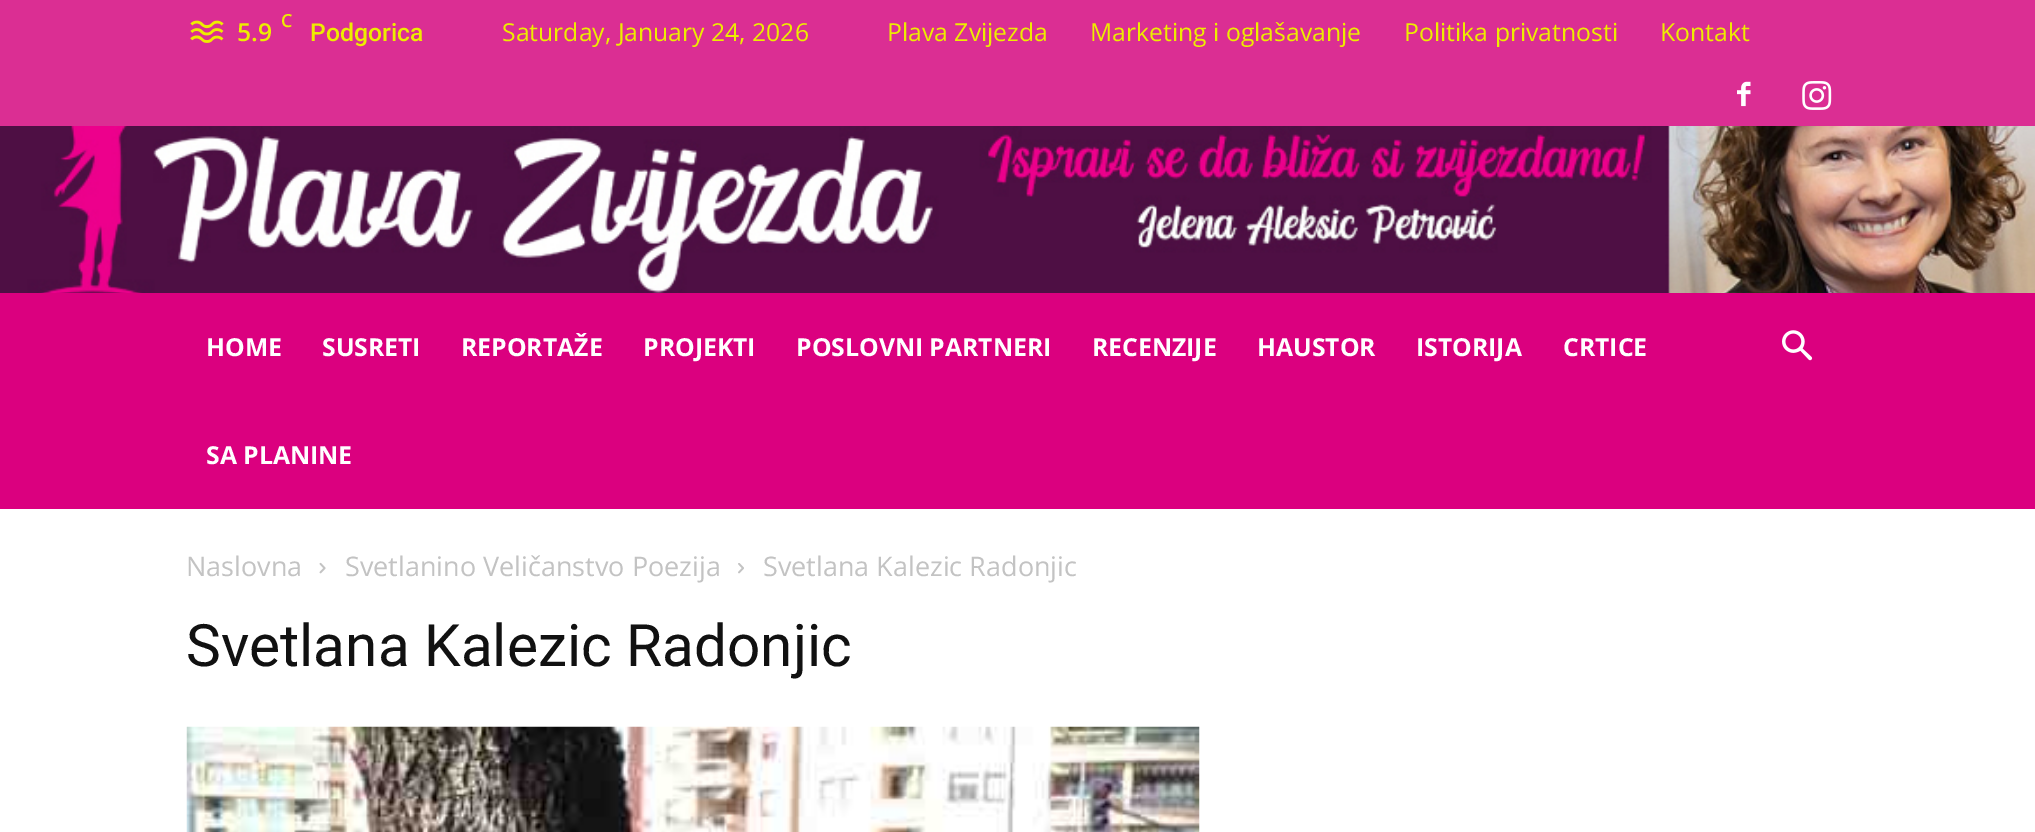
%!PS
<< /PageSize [2035 832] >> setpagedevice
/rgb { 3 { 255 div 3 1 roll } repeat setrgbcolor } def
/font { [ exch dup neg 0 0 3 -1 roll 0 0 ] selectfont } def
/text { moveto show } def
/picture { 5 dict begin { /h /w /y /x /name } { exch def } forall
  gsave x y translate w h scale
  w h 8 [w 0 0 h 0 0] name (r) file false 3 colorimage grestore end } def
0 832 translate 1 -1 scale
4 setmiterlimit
255 255 255 rgb
0 0 2035 832 rectfill
219 46 147 rgb
0 0 2035 126 rectfill
(img_01.rgb) 190 20 34 23 picture
(img_02.rgb) 1737 81 14 26 picture
(img_03.rgb) 1802 81 30 29 picture
(img_04.rgb) 0 126 2035 167 picture
219 0 127 rgb
0 293 2035 216 rectfill
(img_05.rgb) 1782 330 31 31 picture
(img_06.rgb) 319 562 7 12 picture
(img_07.rgb) 738 563 6 11 picture
(img_08.rgb) 186 726 1014 106 picture
/OpenSans-SemiBold 18 font
237 237 0 rgb
(C) 281 27 text
/OpenSans-SemiBold 24.75 font
(5.9) 237 41 text
/Roboto-Medium 24.75 font
(Podgorica) 310 41 text
/OpenSans-Regular 24.75 font
(Saturday, January 24, 2026) 502 41 text
(Plava Zvijezda) 887 41 text
(Marketing i oglašavanje) 1090 41 text
(Politika privatnosti) 1404 41 text
(Kontakt) 1660 41 text
/OpenSans-Bold 24.75 font
255 255 255 rgb
(HOME) 206 356 text
(SUSRETI) 322 356 text
(REPORTAŽE) 461 356 text
(PROJEKTI) 643 356 text
(POSLOVNI PARTNERI) 796 356 text
(RECENZIJE) 1092 356 text
(HAUSTOR) 1257 356 text
(ISTORIJA) 1416 356 text
(CRTICE) 1563 356 text
(SA PLANINE) 206 464 text
/OpenSans-Regular 27 font
195 195 195 rgb
(Naslovna) 186 576 text
(Svetlanino Veličanstvo Poezija) 345 576 text
(Svetlana Kalezic Radonjic) 763 576 text
/Roboto-Regular 58.5 font
17 17 17 rgb
(Svetlana Kalezic Radonjic) 186 666 text
showpage
